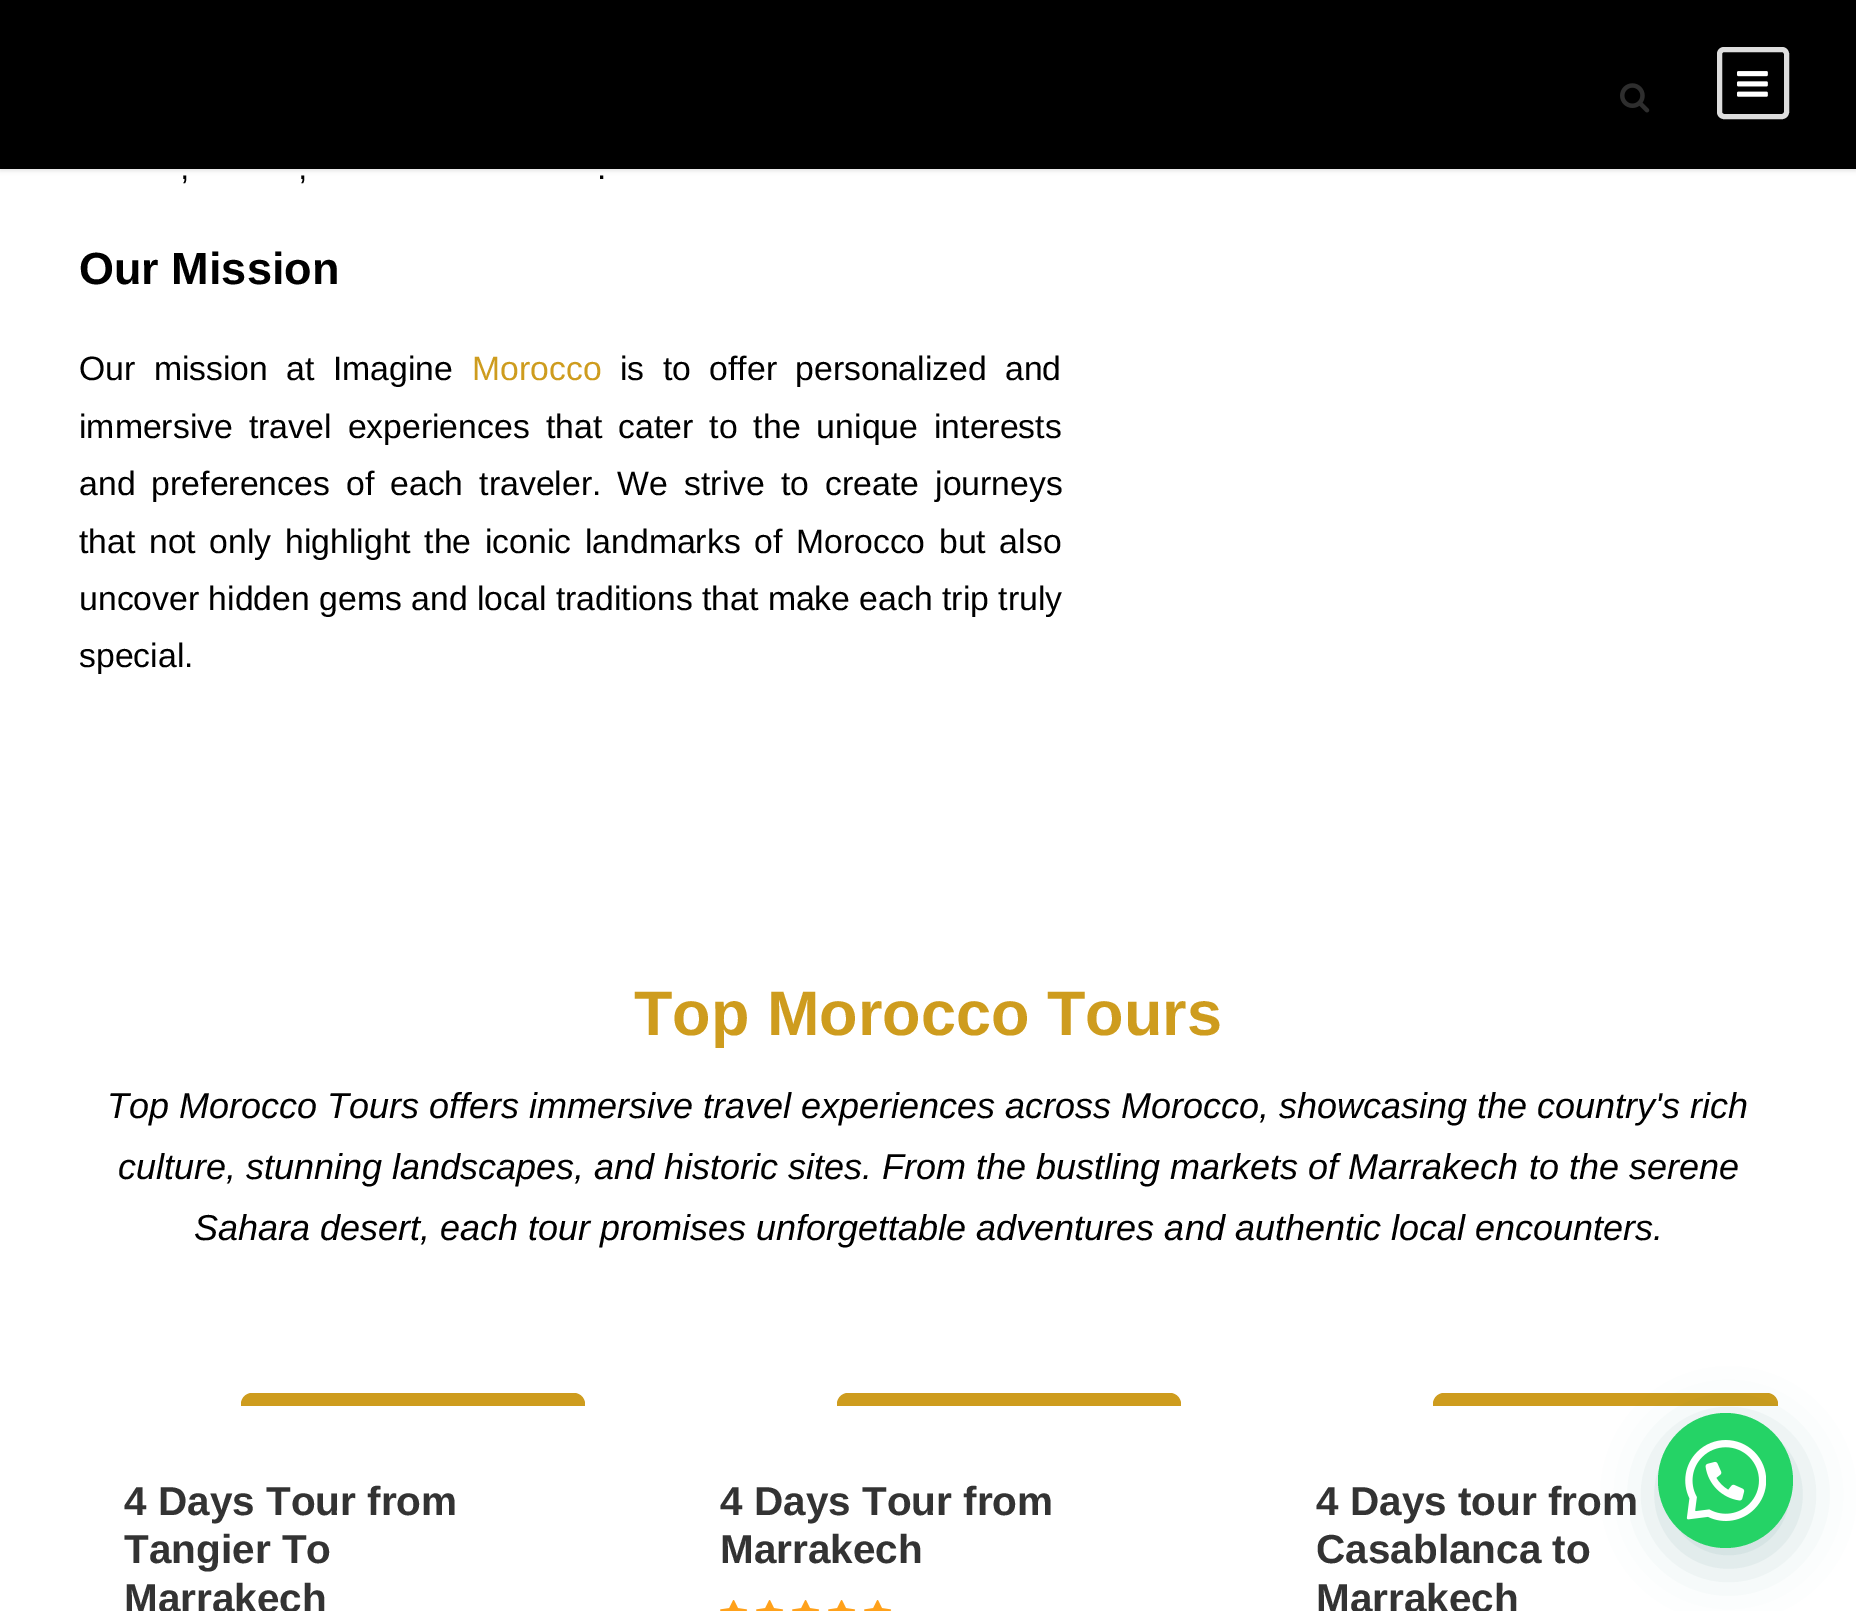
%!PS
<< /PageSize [1856 1611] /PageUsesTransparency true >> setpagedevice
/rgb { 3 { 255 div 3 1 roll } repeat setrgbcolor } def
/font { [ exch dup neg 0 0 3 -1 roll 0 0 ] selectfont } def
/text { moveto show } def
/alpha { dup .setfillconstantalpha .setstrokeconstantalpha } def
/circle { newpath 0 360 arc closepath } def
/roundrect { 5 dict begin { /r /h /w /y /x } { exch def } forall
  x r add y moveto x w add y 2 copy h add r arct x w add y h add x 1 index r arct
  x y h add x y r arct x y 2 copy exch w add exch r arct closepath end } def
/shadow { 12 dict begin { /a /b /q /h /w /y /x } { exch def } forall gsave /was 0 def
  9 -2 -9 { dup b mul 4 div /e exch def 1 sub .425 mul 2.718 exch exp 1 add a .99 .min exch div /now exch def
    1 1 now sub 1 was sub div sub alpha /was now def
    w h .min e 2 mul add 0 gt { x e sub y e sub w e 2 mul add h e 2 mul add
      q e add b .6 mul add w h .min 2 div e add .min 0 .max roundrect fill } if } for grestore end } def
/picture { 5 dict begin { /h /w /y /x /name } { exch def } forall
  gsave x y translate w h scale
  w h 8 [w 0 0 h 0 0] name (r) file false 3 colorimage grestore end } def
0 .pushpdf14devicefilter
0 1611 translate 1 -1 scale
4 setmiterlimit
255 255 255 rgb
0 0 1856 1611 rectfill
0 0 0 rgb
0 2 1856 169 0 2 0.1 shadow
0 0 1856 169 rectfill
(img_01.rgb) 1620 83 30 30 picture
221 221 221 rgb
5 setlinewidth
1719.5 49.5 67 67 4.5 roundrect stroke
(img_02.rgb) 1737 71 31 26 picture
206 156 30 rgb
252 1393 moveto 322 0 rlineto 6 0 11 5 11 11 rcurveto 0 2 rlineto -344 0 rlineto 0 -2 rlineto 0 -6 5 -11 11 -11 rcurveto closepath fill
848 1393 moveto 322 0 rlineto 6 0 11 5 11 11 rcurveto 0 2 rlineto -344 0 rlineto 0 -2 rlineto 0 -6 5 -11 11 -11 rcurveto closepath fill
(img_03.rgb) 720 1600 28 11 picture
(img_03.rgb) 756 1600 28 11 picture
(img_03.rgb) 792 1600 28 11 picture
(img_03.rgb) 828 1600 28 11 picture
(img_03.rgb) 864 1600 28 11 picture
1444 1393 moveto 323 0 rlineto 6 0 11 5 11 11 rcurveto 0 2 rlineto -345 0 rlineto 0 -2 rlineto 0 -6 5 -11 11 -11 rcurveto closepath fill
7 94 84 rgb
1661 1427 135 135 67.5 27 0.24 shadow
37 211 102 rgb
1725.5 1480.5 67.5 circle fill
(img_04.rgb) 1685 1440 81 81 picture
/LiberationSans-Regular 33.75 font
0 0 0 rgb
(,) 180 179 text
(,) 298 179 text
(.) 597 179 text
/LiberationSans-Bold 45 font
(Our Mission) 79 284 text
/LiberationSans-Regular 33.75 font
79 380 moveto 9 0 32 (Our mission at Imagine) widthshow
206 156 30 rgb
(Morocco) 472 380 text
0 0 0 rgb
620 380 moveto 9 0 32 (is to offer personalized and) widthshow
79 438 moveto 6.75 0 32 (immersive travel experiences that cater to the unique interests) widthshow
79 495 moveto 6.75 0 32 (and preferences of each traveler. We strive to create journeys) widthshow
79 553 moveto 4.25 0 32 (that not only highlight the iconic landmarks of Morocco but also) widthshow
(uncover hidden gems and local traditions that make each trip truly) 79 610 text
(special.) 79 667 text
/LiberationSans-Bold 63 font
206 156 30 rgb
(Top Morocco Tours) 634 1035 text
/LiberationSans-Italic 36 font
0 0 0 rgb
(Top Morocco Tours offers immersive travel experiences across Morocco, showcasing the country's rich) 107 1118 text
(culture, stunning landscapes, and historic sites. From the bustling markets of Marrakech to the serene) 118 1179 text
(Sahara desert, each tour promises unforgettable adventures and authentic local encounters.) 194 1240 text
/LiberationSans-Bold 40.5 font
51 51 51 rgb
(4 Days Tour from) 124 1515 text
(Tangier To) 124 1563 text
(Marrakech) 124 1612 text
(4 Days Tour from) 720 1515 text
(Marrakech) 720 1563 text
(4 Days tour from) 1316 1515 text
(Casablanca to) 1316 1563 text
(Marrakech) 1316 1612 text
.poppdf14devicefilter showpage
